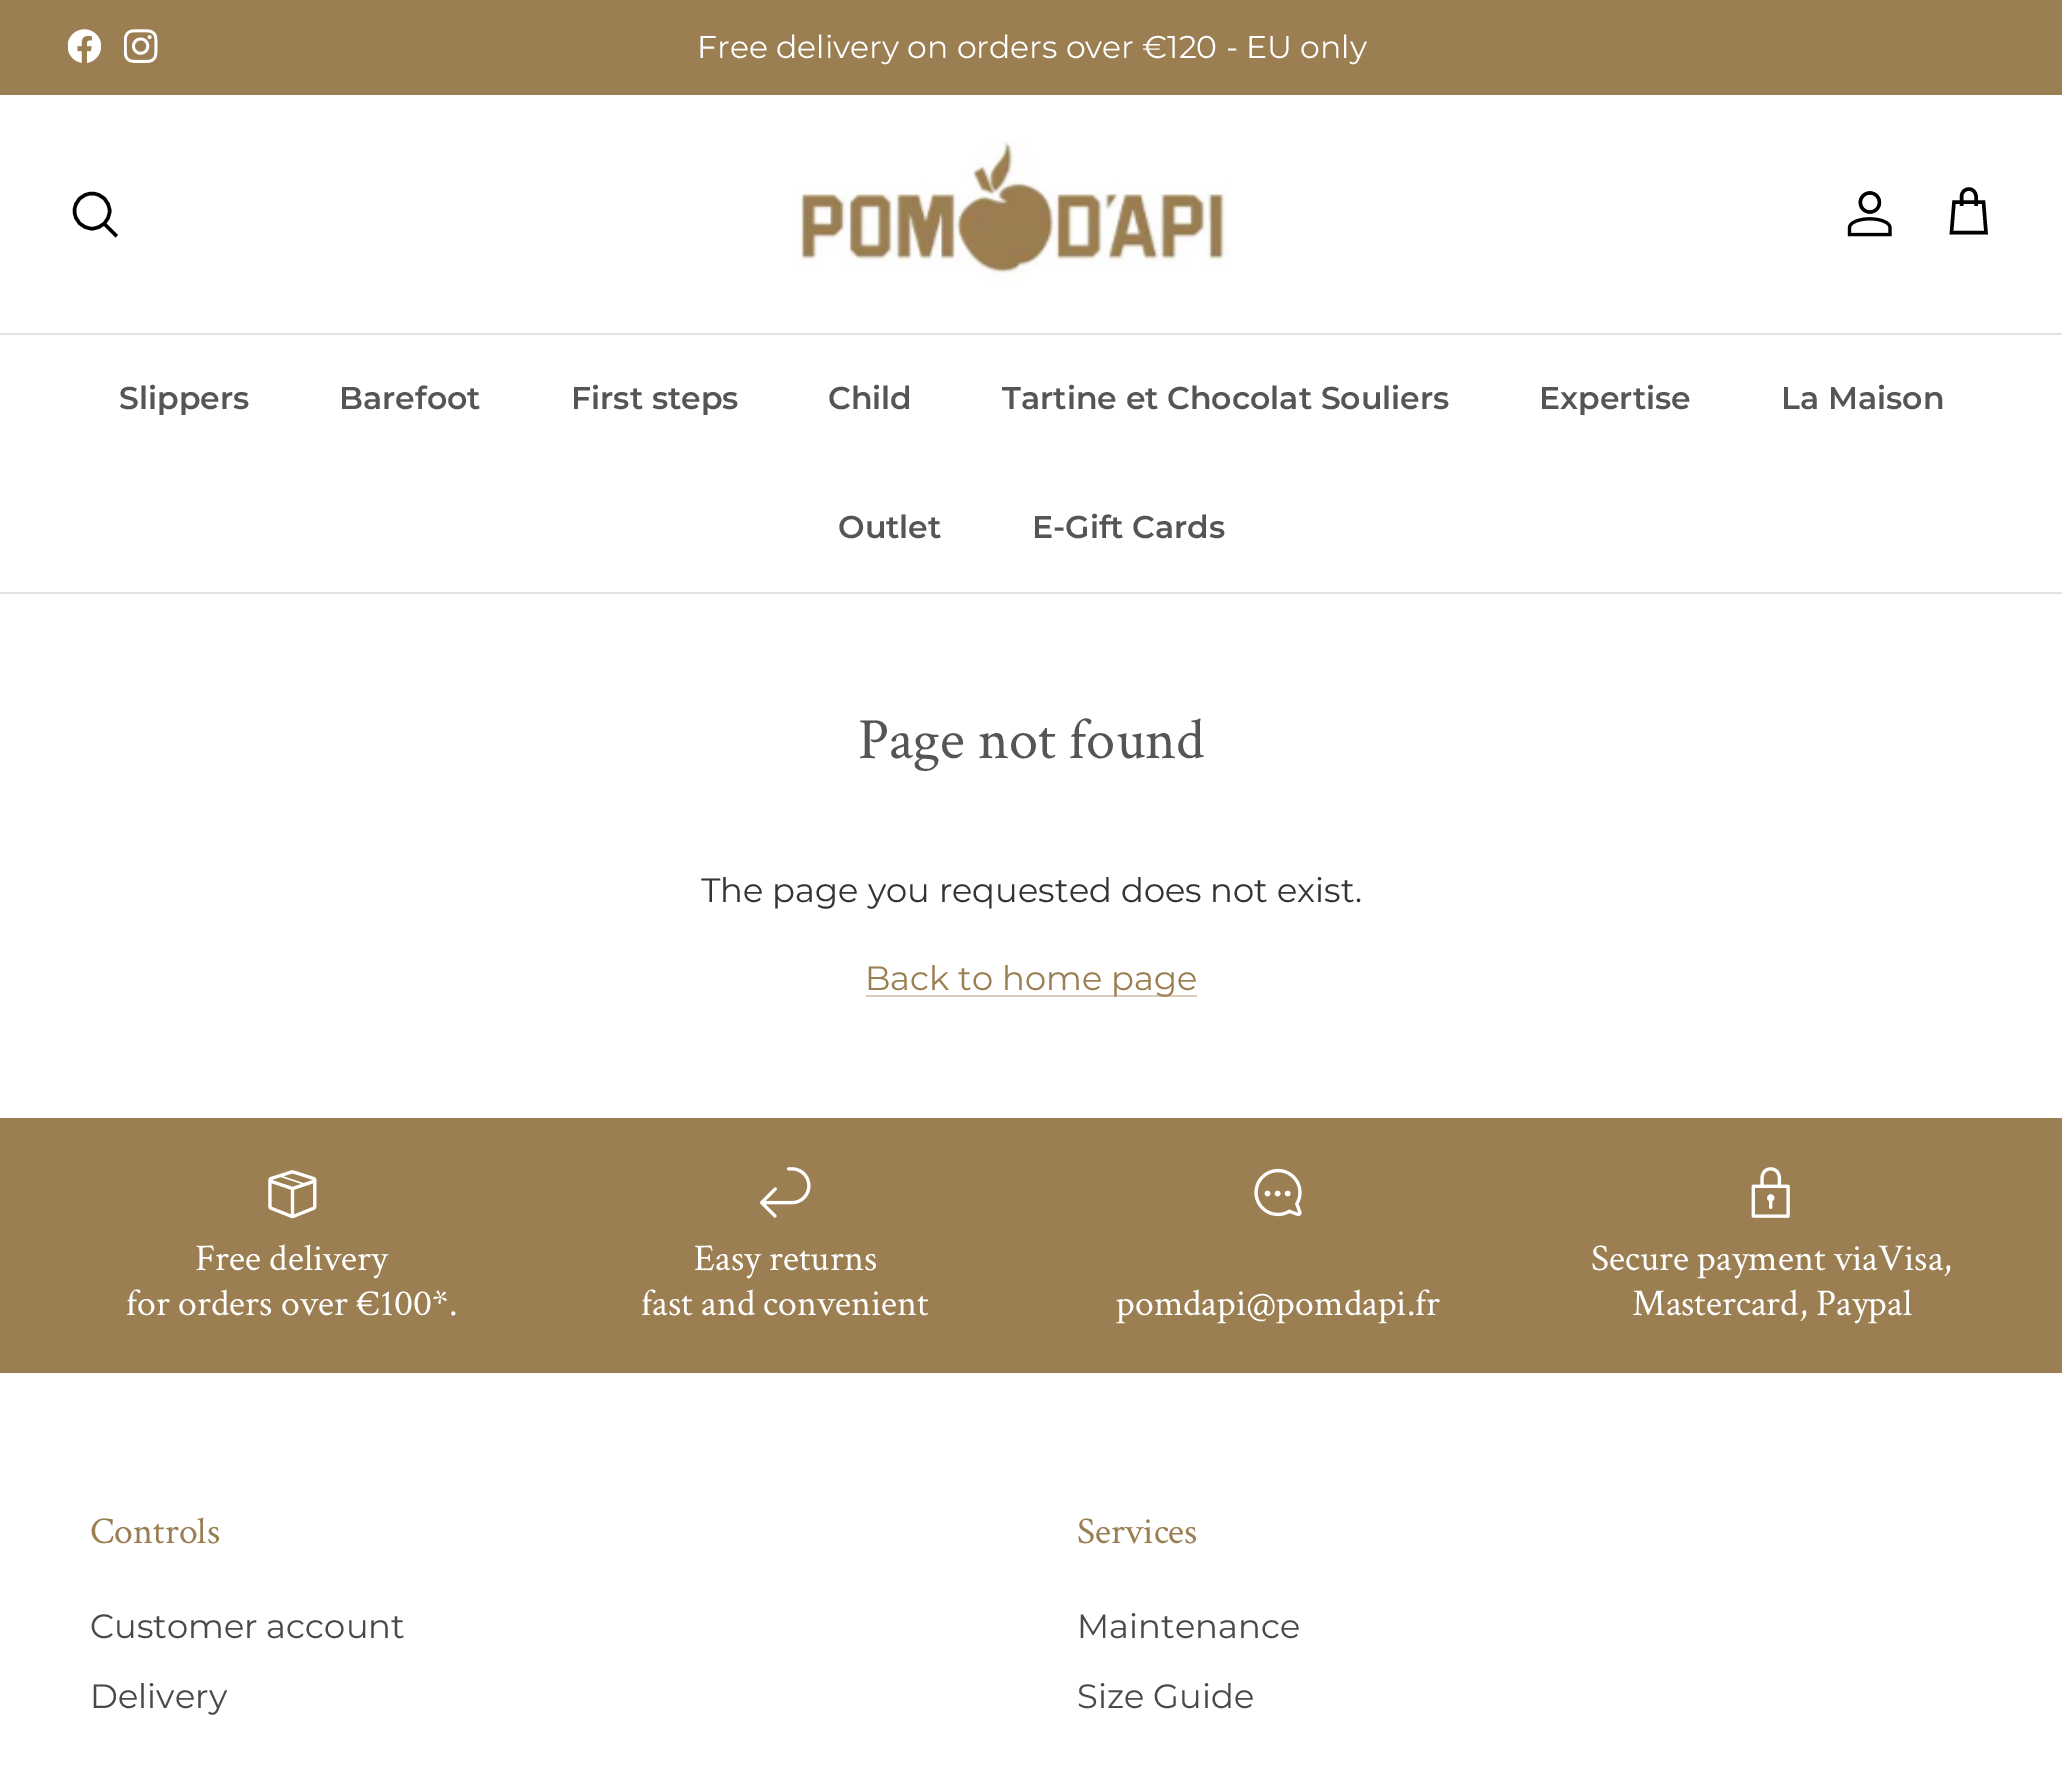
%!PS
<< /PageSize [2062 1767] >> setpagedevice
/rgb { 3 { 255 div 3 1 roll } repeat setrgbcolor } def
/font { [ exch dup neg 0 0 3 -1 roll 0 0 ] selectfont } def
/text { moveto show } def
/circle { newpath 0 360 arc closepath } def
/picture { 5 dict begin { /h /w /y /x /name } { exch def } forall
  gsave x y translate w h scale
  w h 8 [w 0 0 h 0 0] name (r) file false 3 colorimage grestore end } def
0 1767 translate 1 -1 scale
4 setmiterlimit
255 255 255 rgb
0 0 2062 1767 rectfill
155 127 82 rgb
0 0 2062 95 rectfill
(img_01.rgb) 68 29 33 34 picture
(img_02.rgb) 124 29 34 34 picture
226 226 226 rgb
0 333 2062 2 rectfill
0 0 0 rgb
3.4 setlinewidth
92 211 17.5 circle stroke
2 setlinecap
105.5 225 moveto 10 10 rlineto stroke
(img_03.rgb) 799 140 430 141 picture
(img_04.rgb) 1847 191 45 46 picture
0 setlinecap
1976 206 moveto 0 -9.5 rlineto 0 -4 -3 -7.5 -7 -7.5 rcurveto -4.5 0 -7.5 3.5 -7.5 7.5 rcurveto 0 9.5 rlineto 1954 202 moveto 29.5 0 rlineto 2.5 30.5 rlineto -34.5 0 rlineto closepath stroke
226 226 226 rgb
0 592 2062 2 rectfill
215 204 186 rgb
866 995 331 2 rectfill
155 127 82 rgb
0 1118 2062 255 rectfill
(img_05.rgb) 268 1170 49 49 picture
(img_06.rgb) 760 1167 51 51 picture
(img_07.rgb) 1254 1168 48 49 picture
(img_08.rgb) 1751 1167 39 51 picture
/Montserrat-Regular 31.5 font
255 255 255 rgb
(Free delivery on orders over €120 - EU only) 697 58 text
/Montserrat-SemiBold 31.5 font
85 85 85 rgb
(Slippers) 119 409 text
(Barefoot) 339 409 text
(First steps) 571 409 text
(Child) 828 409 text
(Tartine et Chocolat Souliers) 1002 409 text
(Expertise) 1539 409 text
(La Maison) 1781 409 text
(Outlet) 838 538 text
(E-Gift Cards) 1032 538 text
/CrimsonText-Regular 58.5 font
(Page not found) 858 758 text
/Montserrat-Regular 33.75 font
52 52 52 rgb
(The page you requested does not exist.) 701 902 text
155 127 82 rgb
(Back to home page) 865 990 text
/CrimsonText-Regular 37.75 font
255 255 255 rgb
(Free delivery) 195 1270 text
(for orders over €100*.) 126 1315 text
(Easy returns) 694 1270 text
(fast and convenient) 641 1315 text
(pomdapi@pomdapi.fr) 1116 1315 text
(Secure payment viaVisa,) 1591 1270 text
(Mastercard, Paypal) 1632 1315 text
155 127 82 rgb
(Controls) 90 1543 text
/Montserrat-Regular 33.75 font
73 73 73 rgb
(Customer account) 90 1638 text
(Delivery) 90 1708 text
/CrimsonText-Regular 37.75 font
155 127 82 rgb
(Services) 1077 1543 text
/Montserrat-Regular 33.75 font
73 73 73 rgb
(Maintenance) 1077 1638 text
(Size Guide) 1077 1708 text
showpage
